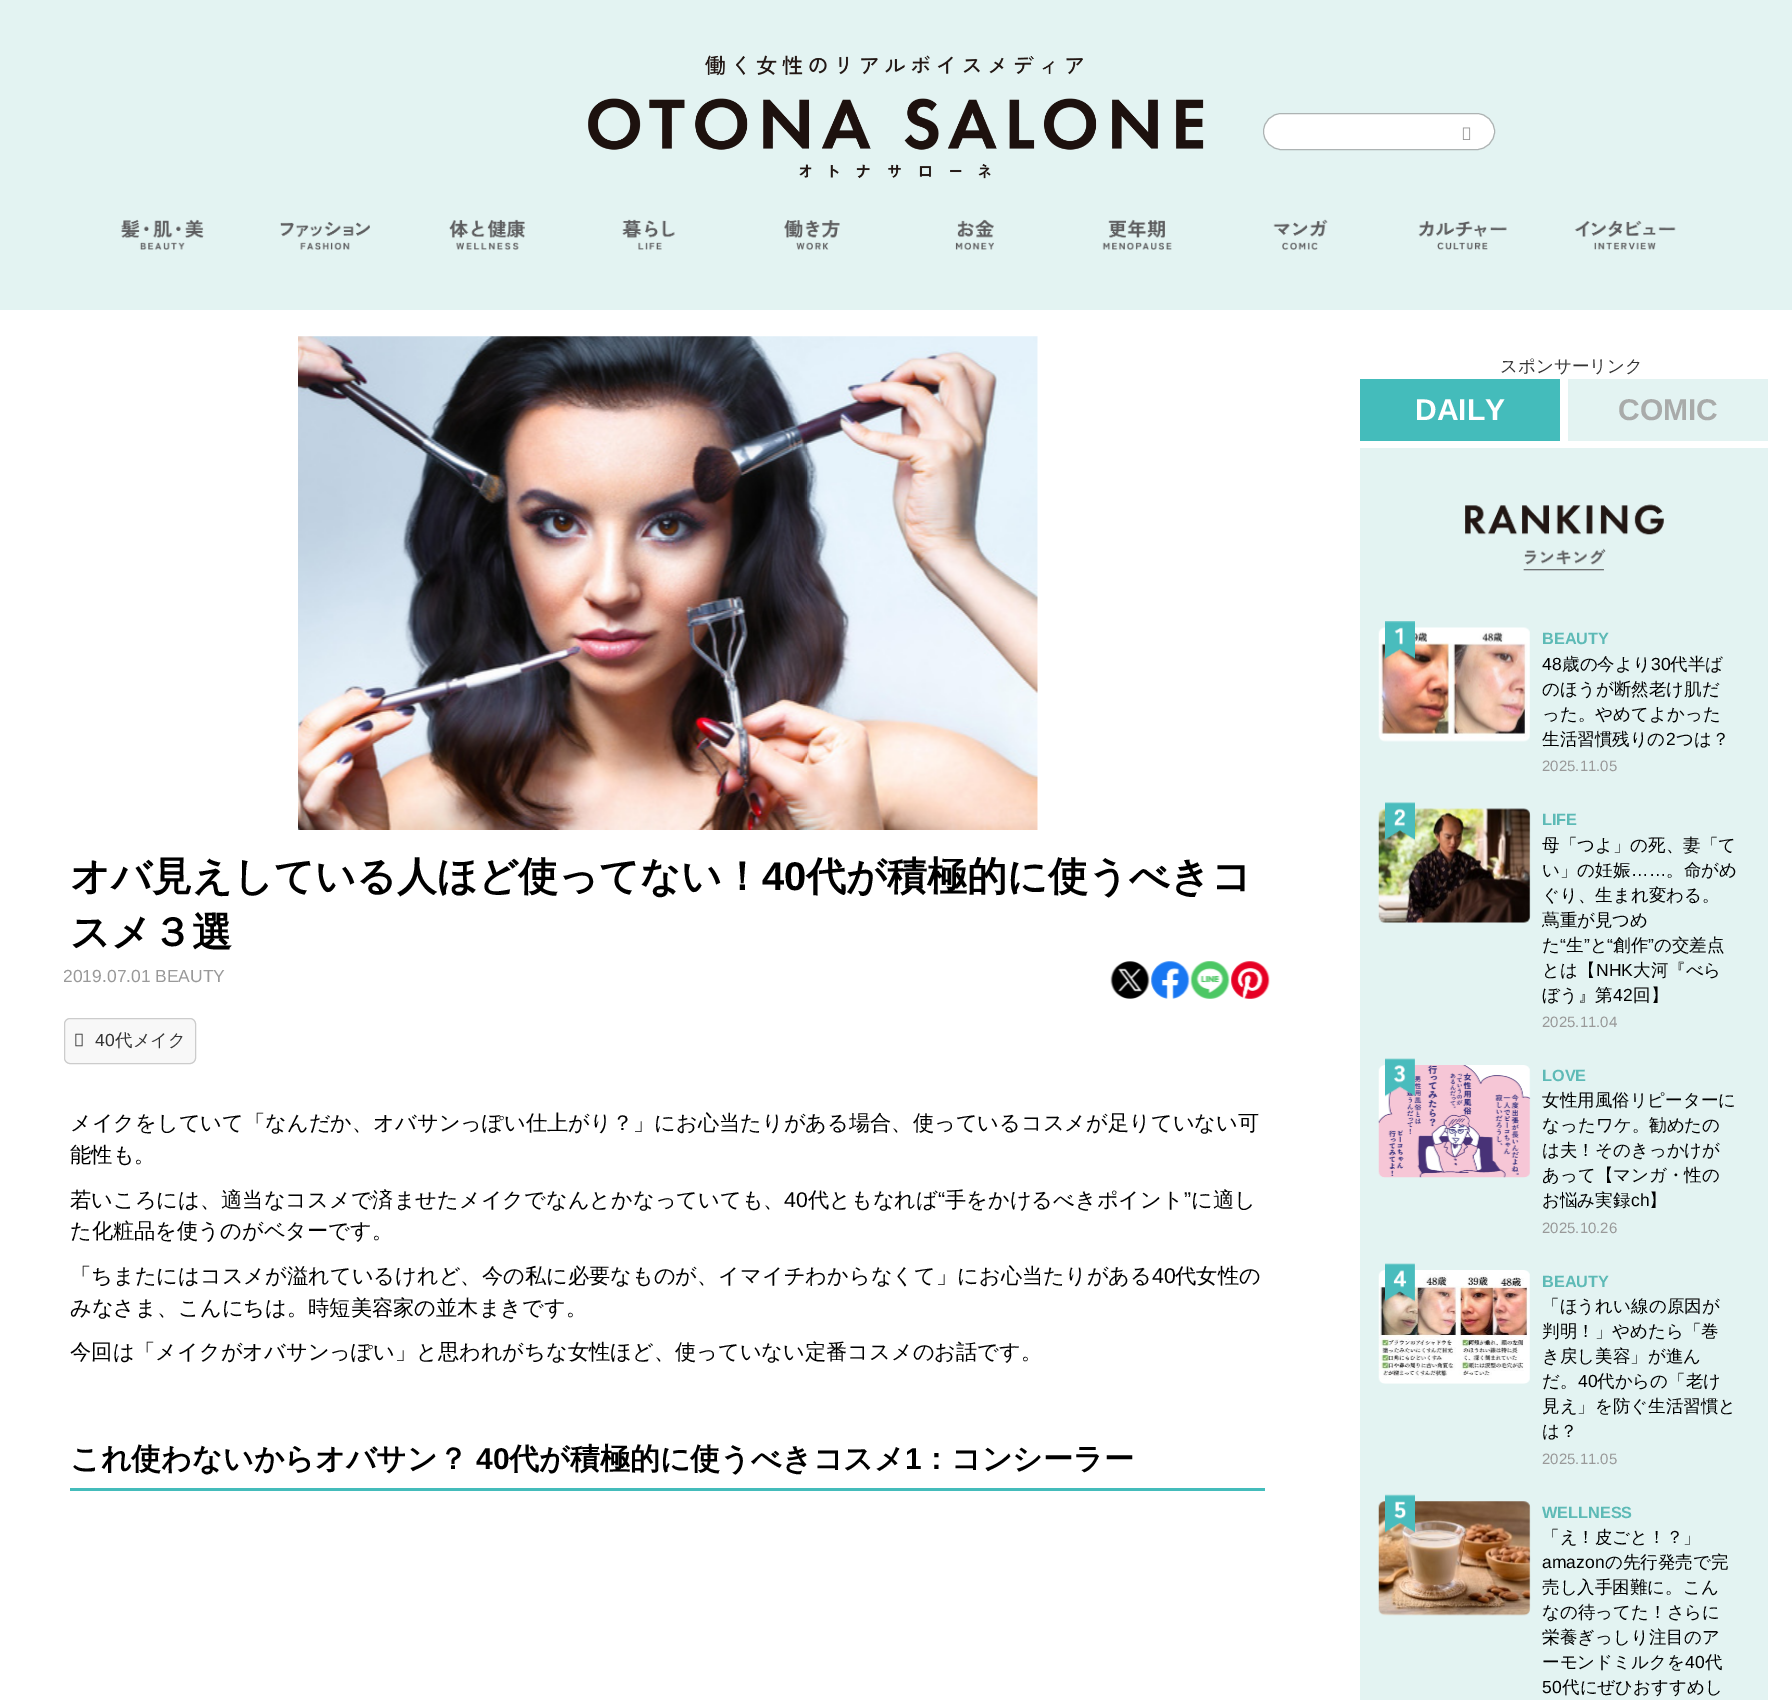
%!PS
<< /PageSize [1792 1700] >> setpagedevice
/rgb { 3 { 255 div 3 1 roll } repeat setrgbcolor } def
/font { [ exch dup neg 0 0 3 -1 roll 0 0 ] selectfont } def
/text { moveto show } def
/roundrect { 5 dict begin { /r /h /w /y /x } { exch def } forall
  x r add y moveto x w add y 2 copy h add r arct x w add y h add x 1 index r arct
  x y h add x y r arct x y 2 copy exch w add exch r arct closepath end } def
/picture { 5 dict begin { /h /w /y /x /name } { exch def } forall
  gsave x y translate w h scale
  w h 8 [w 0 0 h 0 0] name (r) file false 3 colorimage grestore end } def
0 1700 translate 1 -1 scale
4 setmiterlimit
255 255 255 rgb
0 0 1792 1700 rectfill
227 243 242 rgb
0 0 1792 310 rectfill
(img_01.rgb) 121 219 83 31 picture
(img_02.rgb) 280 222 90 28 picture
(img_03.rgb) 449 219 76 31 picture
(img_04.rgb) 622 219 53 31 picture
(img_05.rgb) 784 220 56 30 picture
(img_06.rgb) 955 219 39 31 picture
(img_07.rgb) 1102 219 70 31 picture
(img_08.rgb) 1273 219 55 31 picture
(img_09.rgb) 1418 221 89 29 picture
(img_10.rgb) 1574 220 102 30 picture
(img_11.rgb) 588 55 616 124 picture
255 255 255 rgb
1263.5 113.5 231 36 18 roundrect gsave fill grestore
173 179 179 rgb
stroke
(img_12.rgb) 1462 127 9 13 picture
(img_13.rgb) 298 336 740 494 picture
(img_14.rgb) 1110 961 40 38 picture
(img_15.rgb) 1151 961 39 38 picture
(img_16.rgb) 1190 961 40 38 picture
(img_17.rgb) 1231 961 39 38 picture
248 248 248 rgb
64.5 1018.5 131 45 5.5 roundrect gsave fill grestore
204 204 204 rgb
stroke
(img_18.rgb) 75 1033 8 14 picture
68 188 187 rgb
70 1488 1195 3 rectfill
1360 379 200 62 rectfill
227 243 242 rgb
1568 379 200 62 rectfill
1360 448 408 1252 rectfill
(img_19.rgb) 1465 504 199 67 picture
(img_21.rgb) 1378 627 152 115 picture
(img_20.rgb) 1385 621 30 39 picture
(img_23.rgb) 1378 808 153 115 picture
(img_22.rgb) 1385 802 30 39 picture
(img_25.rgb) 1378 1065 153 113 picture
(img_24.rgb) 1385 1058 30 39 picture
(img_27.rgb) 1378 1270 152 114 picture
(img_26.rgb) 1385 1263 30 39 picture
(img_29.rgb) 1378 1501 153 115 picture
(img_28.rgb) 1385 1494 30 39 picture
/WenQuanYiZenHei-Bold 40 font
0 0 0 rgb
(オバ見えしている人ほど使ってない！) 70 890 text
/LiberationSans-Bold 40 font
(40) 762 890 text
/WenQuanYiZenHei-Bold 40 font
(代が積極的に使うべきコ) 806 890 text
(スメ３選) 70 946 text
/LiberationSans-Regular 17.5 font
153 153 153 rgb
(2019.07.01) 63 982 text
(BEAUTY) 155 982 text
51 51 51 rgb
(40) 95 1046 text
/WenQuanYiZenHei-Medium 17.5 font
(代メイク) 115 1046 text
/WenQuanYiZenHei-Medium 21.25 font
0 0 0 rgb
(メイクをしていて「なんだか、オバサンっぽい仕上がり？」にお心当たりがある場合、使っているコスメが足りていない可) 70 1130 text
(能性も。) 70 1162 text
(若いころには、適当なコスメで済ませたメイクでなんとかなっていても、) 70 1207 text
/LiberationSans-Regular 21.25 font
(40) 784 1207 text
/WenQuanYiZenHei-Medium 21.25 font
(代ともなれば) 808 1207 text
/LiberationSans-Regular 21.25 font
(“) 938 1207 text
/WenQuanYiZenHei-Medium 21.25 font
(手をかけるべきポイント) 945 1207 text
/LiberationSans-Regular 21.25 font
(”) 1184 1207 text
/WenQuanYiZenHei-Medium 21.25 font
(に適し) 1191 1207 text
(た化粧品を使うのがベターです。) 70 1238 text
(「ちまたにはコスメが溢れているけれど、今の私に必要なものが、イマイチわからなくて」にお心当たりがある) 70 1283 text
/LiberationSans-Regular 21.25 font
(40) 1152 1283 text
/WenQuanYiZenHei-Medium 21.25 font
(代女性の) 1175 1283 text
(みなさま、こんにちは。時短美容家の並木まきです。) 70 1315 text
(今回は「メイクがオバサンっぽい」と思われがちな女性ほど、使っていない定番コスメのお話です。) 70 1359 text
/WenQuanYiZenHei-Bold 30 font
(これ使わないからオバサン？) 70 1469 text
/LiberationSans-Bold 30 font
(40) 476 1469 text
/WenQuanYiZenHei-Bold 30 font
(代が積極的に使うべきコスメ) 509 1469 text
/LiberationSans-Bold 30 font
(1) 905 1469 text
/WenQuanYiZenHei-Bold 30 font
(：コンシーラー) 921 1469 text
/WenQuanYiZenHei-Medium 17.5 font
51 51 51 rgb
(スポンサーリンク) 1500 372 text
/LiberationSans-Bold 30 font
255 255 255 rgb
(DAILY) 1415 420 text
169 171 170 rgb
(COMIC) 1618 420 text
/LiberationSans-Bold 16.25 font
93 186 182 rgb
(BEAUTY) 1542 644 text
/LiberationSans-Regular 17.5 font
0 0 0 rgb
(48) 1542 670 text
/WenQuanYiZenHei-Medium 17.5 font
(歳の今より) 1562 670 text
/LiberationSans-Regular 17.5 font
(30) 1651 670 text
/WenQuanYiZenHei-Medium 17.5 font
(代半ば) 1670 670 text
(のほうが断然老け肌だ) 1542 695 text
(った。やめてよかった) 1542 720 text
(生活習慣残りの) 1542 745 text
/LiberationSans-Regular 17.5 font
(2) 1666 745 text
/WenQuanYiZenHei-Medium 17.5 font
(つは？) 1676 745 text
/LiberationSans-Regular 15 font
153 153 153 rgb
(2025.11.05) 1542 771 text
/LiberationSans-Bold 16.25 font
93 186 182 rgb
(LIFE) 1542 825 text
/WenQuanYiZenHei-Medium 17.5 font
0 0 0 rgb
(母「つよ」の死、妻「て) 1542 851 text
(い」の妊娠) 1542 876 text
/LiberationSans-Regular 17.5 font
(……) 1631 876 text
/WenQuanYiZenHei-Medium 17.5 font
(。命がめ) 1666 876 text
(ぐり、生まれ変わる。) 1542 901 text
(蔦重が見つめ) 1542 926 text
(た) 1542 951 text
/LiberationSans-Regular 17.5 font
(“) 1560 951 text
/WenQuanYiZenHei-Medium 17.5 font
(生) 1566 951 text
/LiberationSans-Regular 17.5 font
(”) 1584 951 text
/WenQuanYiZenHei-Medium 17.5 font
(と) 1590 951 text
/LiberationSans-Regular 17.5 font
(“) 1607 951 text
/WenQuanYiZenHei-Medium 17.5 font
(創作) 1613 951 text
/LiberationSans-Regular 17.5 font
(”) 1648 951 text
/WenQuanYiZenHei-Medium 17.5 font
(の交差点) 1654 951 text
(とは【) 1542 976 text
/LiberationSans-Regular 17.5 font
(NHK) 1596 976 text
/WenQuanYiZenHei-Medium 17.5 font
(大河『べら) 1633 976 text
(ぼう』第) 1542 1001 text
/LiberationSans-Regular 17.5 font
(42) 1613 1001 text
/WenQuanYiZenHei-Medium 17.5 font
(回】) 1633 1001 text
/LiberationSans-Regular 15 font
153 153 153 rgb
(2025.11.04) 1542 1027 text
/LiberationSans-Bold 16.25 font
93 186 182 rgb
(LOVE) 1542 1081 text
/WenQuanYiZenHei-Medium 17.5 font
0 0 0 rgb
(女性用風俗リピーターに) 1542 1106 text
(なったワケ。勧めたの) 1542 1131 text
(は夫！そのきっかけが) 1542 1156 text
(あって【マンガ・性の) 1542 1181 text
(お悩み実録) 1542 1206 text
/LiberationSans-Regular 17.5 font
(ch) 1631 1206 text
/WenQuanYiZenHei-Medium 17.5 font
(】) 1649 1206 text
/LiberationSans-Regular 15 font
153 153 153 rgb
(2025.10.26) 1542 1233 text
/LiberationSans-Bold 16.25 font
93 186 182 rgb
(BEAUTY) 1542 1287 text
/WenQuanYiZenHei-Medium 17.5 font
0 0 0 rgb
(「ほうれい線の原因が) 1542 1312 text
(判明！」やめたら「巻) 1542 1337 text
(き戻し美容」が進ん) 1542 1362 text
(だ。) 1542 1387 text
/LiberationSans-Regular 17.5 font
(40) 1578 1387 text
/WenQuanYiZenHei-Medium 17.5 font
(代からの「老け) 1597 1387 text
(見え」を防ぐ生活習慣と) 1542 1412 text
(は？) 1542 1437 text
/LiberationSans-Regular 15 font
153 153 153 rgb
(2025.11.05) 1542 1464 text
/LiberationSans-Bold 16.25 font
93 186 182 rgb
(WELLNESS) 1542 1518 text
/WenQuanYiZenHei-Medium 17.5 font
0 0 0 rgb
(「え！皮ごと！？」) 1542 1543 text
/LiberationSans-Regular 17.5 font
(amazon) 1542 1568 text
/WenQuanYiZenHei-Medium 17.5 font
(の先行発売で完) 1605 1568 text
(売し入手困難に。こん) 1542 1593 text
(なの待ってた！さらに) 1542 1618 text
(栄養ぎっしり注目のア) 1542 1643 text
(ーモンドミルクを) 1542 1668 text
/LiberationSans-Regular 17.5 font
(40) 1685 1668 text
/WenQuanYiZenHei-Medium 17.5 font
(代) 1705 1668 text
/LiberationSans-Regular 17.5 font
(50) 1542 1693 text
/WenQuanYiZenHei-Medium 17.5 font
(代にぜひおすすめし) 1562 1693 text
showpage
